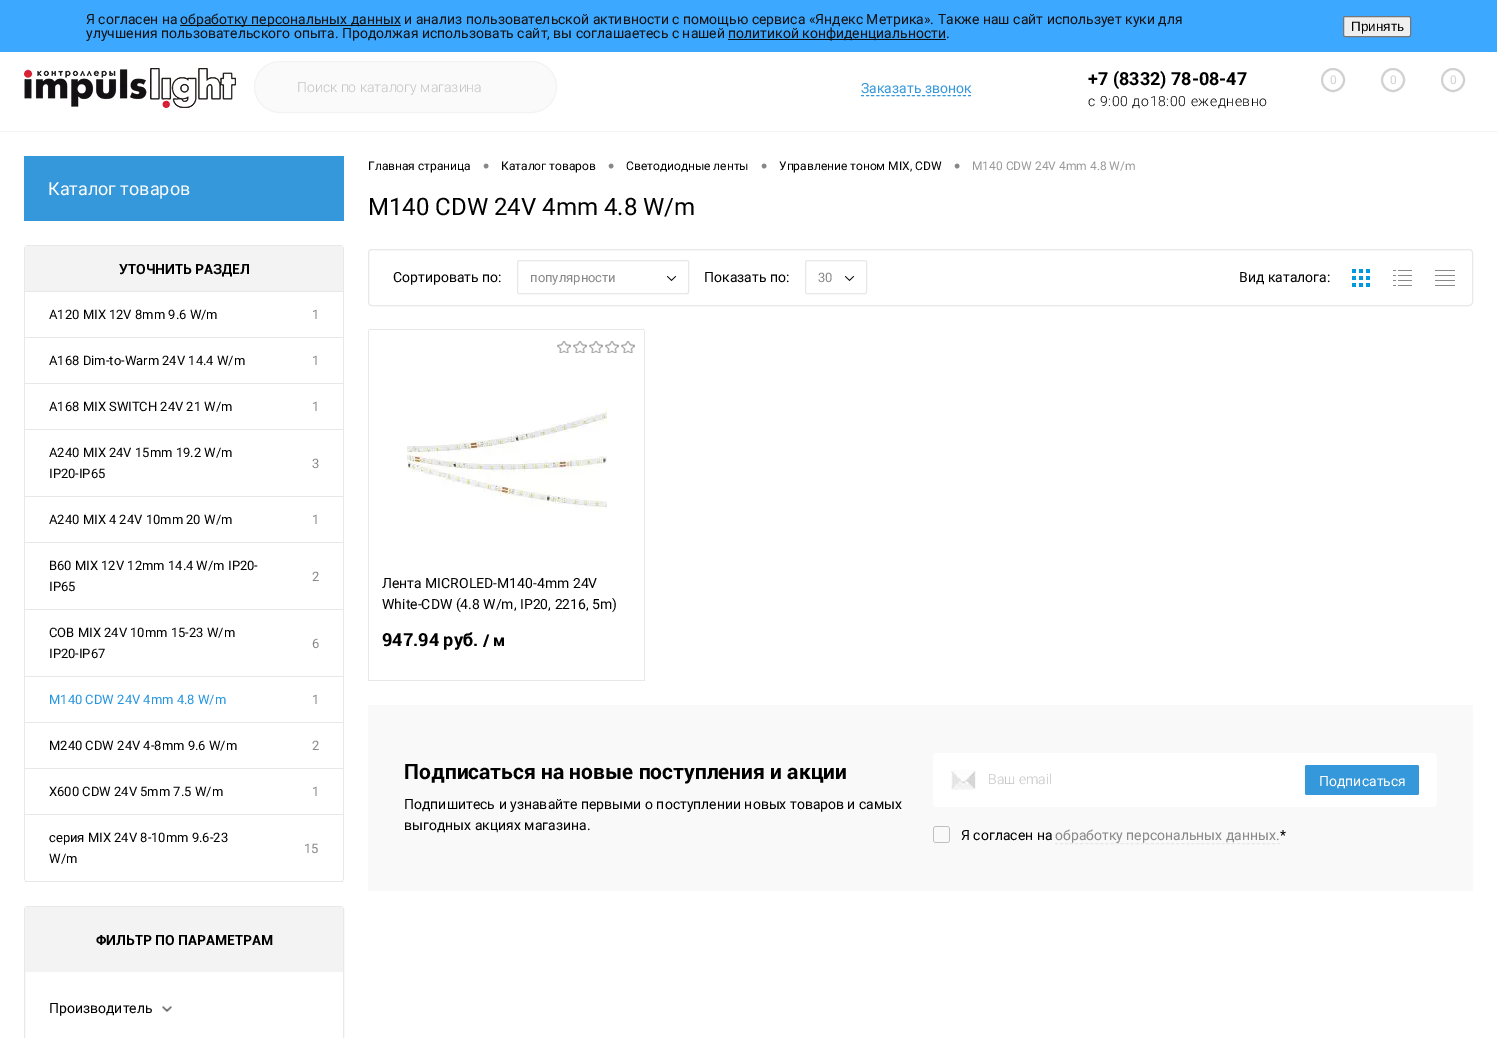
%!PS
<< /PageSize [1497 1038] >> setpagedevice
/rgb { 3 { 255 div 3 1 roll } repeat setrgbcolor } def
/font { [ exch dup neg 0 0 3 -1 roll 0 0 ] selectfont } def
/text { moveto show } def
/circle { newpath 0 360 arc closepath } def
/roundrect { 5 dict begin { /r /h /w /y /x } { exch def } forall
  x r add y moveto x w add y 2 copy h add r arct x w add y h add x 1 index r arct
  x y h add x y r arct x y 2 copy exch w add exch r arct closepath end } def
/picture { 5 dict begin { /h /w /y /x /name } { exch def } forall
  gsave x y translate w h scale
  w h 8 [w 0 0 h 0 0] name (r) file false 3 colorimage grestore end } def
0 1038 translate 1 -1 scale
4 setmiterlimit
255 255 255 rgb
0 0 1497 1038 rectfill
61 168 255 rgb
0 0 1497 52 rectfill
17 17 17 rgb
180 25 221 1 rectfill
728 39 218 1 rectfill
239 239 239 rgb
1343.5 16.5 67 20 1.5 roundrect gsave fill grestore
118 118 118 rgb
stroke
243 243 243 rgb
0 131 1497 1 rectfill
(img_01.rgb) 24 68 212 40 picture
52 152 219 rgb
[3 2.1] 0 setdash
861 95.5 moveto 110 0 rlineto stroke
209 209 209 rgb
2 setlinewidth
[] 0 setdash
1333 80 11 circle stroke
1393 80 11 circle stroke
1453 80 11 circle stroke
250 250 250 rgb
254.5 61.5 302 51 25.5 roundrect gsave fill grestore
243 243 243 rgb
1 setlinewidth
stroke
52 152 219 rgb
24 156 320 65 rectfill
231 232 234 rgb
28 245 moveto 312 0 rlineto 2 0 4 2 4 4 rcurveto 0 629 rlineto 0 2 -2 4 -4 4 rcurveto -312 0 rlineto -2 0 -4 -2 -4 -4 rcurveto 0 -629 rlineto 0 -2 2 -4 4 -4 rcurveto closepath 28 246 moveto 312 0 rlineto 2 0 3 1 3 3 rcurveto 0 629 rlineto 0 2 -1 4 -3 4 rcurveto -312 0 rlineto -2 0 -3 -2 -3 -4 rcurveto 0 -629 rlineto 0 -2 1 -3 3 -3 rcurveto closepath eofill
243 243 243 rgb
25 246 318 45 rectfill
231 232 234 rgb
25 291 318 1 rectfill
25 337 318 1 rectfill
25 383 318 1 rectfill
25 429 318 1 rectfill
25 496 318 1 rectfill
25 542 318 1 rectfill
25 609 318 1 rectfill
25 676 318 1 rectfill
25 722 318 1 rectfill
25 768 318 1 rectfill
25 814 318 1 rectfill
25 881 318 1 rectfill
24.5 906.5 319 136 3.5 roundrect stroke
243 243 243 rgb
25 907 318 65 rectfill
(img_02.rgb) 162 1006 10 6 picture
231 232 234 rgb
368.5 249.5 1104 56 3.5 roundrect stroke
517.5 260.5 171 33 1.5 roundrect stroke
(img_03.rgb) 667 276 9 5 picture
805.5 260.5 61 33 1.5 roundrect stroke
(img_03.rgb) 845 276 9 5 picture
(img_04.rgb) 1352 269 18 18 picture
(img_05.rgb) 1393 270 19 16 picture
(img_06.rgb) 1435 270 20 16 picture
368 330 1 351 rectfill
644 330 1 351 rectfill
369 680 276 1 rectfill
369 329 275 1 rectfill
(img_07.rgb) 557 341 78 12 picture
(img_08.rgb) 407 407 200 105 picture
249 249 249 rgb
368 705 1105 186 rectfill
255 255 255 rgb
933 753 504 54 4 roundrect fill
(img_09.rgb) 951 770 25 20 picture
52 152 219 rgb
1305 765 114 30 2 roundrect fill
(img_10.rgb) 933 826 17 17 picture
231 232 234 rgb
[3 2.05] 0 setdash
1055 843.5 moveto 225 0 rlineto stroke
/Roboto-Regular 14 font
17 17 17 rgb
(Я согласен на) 86 24 text
(обработку персональных данных и анализ пользовательской активности с помощью сервиса «Яндекс Метрика». Также наш сайт использует куки для) 180 24 text
(улучшения пользовательского опыта. Продолжая использовать сайт, вы соглашаетесь с нашей) 86 38 text
(политикой конфиденциальности.) 728 38 text
/LiberationSans-Regular 13.5 font
0 0 0 rgb
(Принять) 1351 31 text
/Roboto-Regular 14 font
52 152 219 rgb
(Заказать звонок) 861 93 text
/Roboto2-Bold 18 font
0 0 0 rgb
(+7 \(8332\) 78-08-47) 1088 85 text
/Roboto-Light 14 font
1088 106 moveto 0.6 0 (с 9:00 до18:00 ежедневно) ashow
/Roboto-Regular 12 font
209 209 209 rgb
(0) 1330 84 text
(0) 1390 84 text
(0) 1450 84 text
/Roboto-Light 14 font
196 196 196 rgb
(Поиск по каталогу магазина) 297 92 text
/Roboto-Regular 18 font
255 255 255 rgb
(Каталог товаров) 48 195 text
/Roboto-Bold 14 font
0 0 0 rgb
(УТОЧНИТЬ РАЗДЕЛ) 119 274 text
/Roboto-Regular 13 font
(A120 MIX 12V 8mm 9.6 W/m) 49 319 text
136 136 136 rgb
(1) 312 319 text
0 0 0 rgb
(A168 Dim-to-Warm 24V 14.4 W/m) 49 365 text
136 136 136 rgb
(1) 312 365 text
0 0 0 rgb
(A168 MIX SWITCH 24V 21 W/m) 49 411 text
136 136 136 rgb
(1) 312 411 text
0 0 0 rgb
(A240 MIX 24V 15mm 19.2 W/m) 49 457 text
(IP20-IP65) 49 478 text
136 136 136 rgb
(3) 312 468 text
0 0 0 rgb
(A240 MIX 4 24V 10mm 20 W/m) 49 524 text
136 136 136 rgb
(1) 312 524 text
0 0 0 rgb
(B60 MIX 12V 12mm 14.4 W/m IP20-) 49 570 text
(IP65) 49 591 text
136 136 136 rgb
(2) 312 581 text
0 0 0 rgb
(COB MIX 24V 10mm 15-23 W/m) 49 637 text
(IP20-IP67) 49 658 text
136 136 136 rgb
(6) 312 648 text
35 149 225 rgb
(M140 CDW 24V 4mm 4.8 W/m) 49 704 text
136 136 136 rgb
(1) 312 704 text
0 0 0 rgb
(M240 CDW 24V 4-8mm 9.6 W/m) 49 750 text
136 136 136 rgb
(2) 312 750 text
0 0 0 rgb
(X600 CDW 24V 5mm 7.5 W/m) 49 796 text
136 136 136 rgb
(1) 312 796 text
0 0 0 rgb
(серия MIX 24V 8-10mm 9.6-23) 49 842 text
(W/m) 49 863 text
136 136 136 rgb
(15) 304 853 text
/Roboto-Bold 14 font
0 0 0 rgb
(ФИЛЬТР ПО ПАРАМЕТРАМ) 96 945 text
/Roboto-Regular 14 font
(Производитель) 49 1013 text
/Roboto-Regular 12 font
(Главная страница) 368 170 text
/LiberationSans-Regular 18 font
136 136 136 rgb
(•) 483 172 text
/Roboto-Regular 12 font
0 0 0 rgb
(Каталог товаров) 501 170 text
/LiberationSans-Regular 18 font
136 136 136 rgb
(•) 608 172 text
/Roboto-Regular 12 font
0 0 0 rgb
(Светодиодные ленты) 626 170 text
/LiberationSans-Regular 18 font
136 136 136 rgb
(•) 761 172 text
/Roboto-Regular 12 font
0 0 0 rgb
(Управление тоном MIX, CDW) 779 170 text
/LiberationSans-Regular 18 font
136 136 136 rgb
(•) 954 172 text
/Roboto-Regular 12 font
153 153 153 rgb
(M140 CDW 24V 4mm 4.8 W/m) 972 170 text
/Roboto-Regular 24 font
0 0 0 rgb
(M140 CDW 24V 4mm 4.8 W/m) 368 215 text
/Roboto-Regular 14 font
(Сортировать по:) 393 282 text
/Roboto-Regular 13 font
136 136 136 rgb
(популярности) 530 282 text
/Roboto-Regular 14 font
0 0 0 rgb
(Показать по:) 704 282 text
/Roboto-Regular 13 font
136 136 136 rgb
(30) 818 282 text
/Roboto-Regular 14 font
0 0 0 rgb
(Вид каталога:) 1239 282 text
(Лента MICROLED-M140-4mm 24V) 382 588 text
(White-CDW \(4.8 W/m, IP20, 2216, 5m\)) 382 609 text
/Roboto-Bold 18 font
(947.94 руб.) 382 646 text
/Roboto-Bold 16 font
(/ м) 483 646 text
/Roboto-Bold 21 font
(Подписаться на новые поступления и акции) 404 779 text
/Roboto-Regular 14 font
(Подпишитесь и узнавайте первыми о поступлении новых товаров и самых) 404 809 text
(выгодных акциях магазина.) 404 830 text
/Roboto-Light 14 font
196 196 196 rgb
(Ваш email) 988 784 text
/Roboto-Regular 14 font
255 255 255 rgb
(Подписаться) 1319 786 text
0 0 0 rgb
(Я согласен на) 961 840 text
136 136 136 rgb
(обработку персональных данных.) 1055 840 text
0 0 0 rgb
(*) 1280 840 text
showpage
